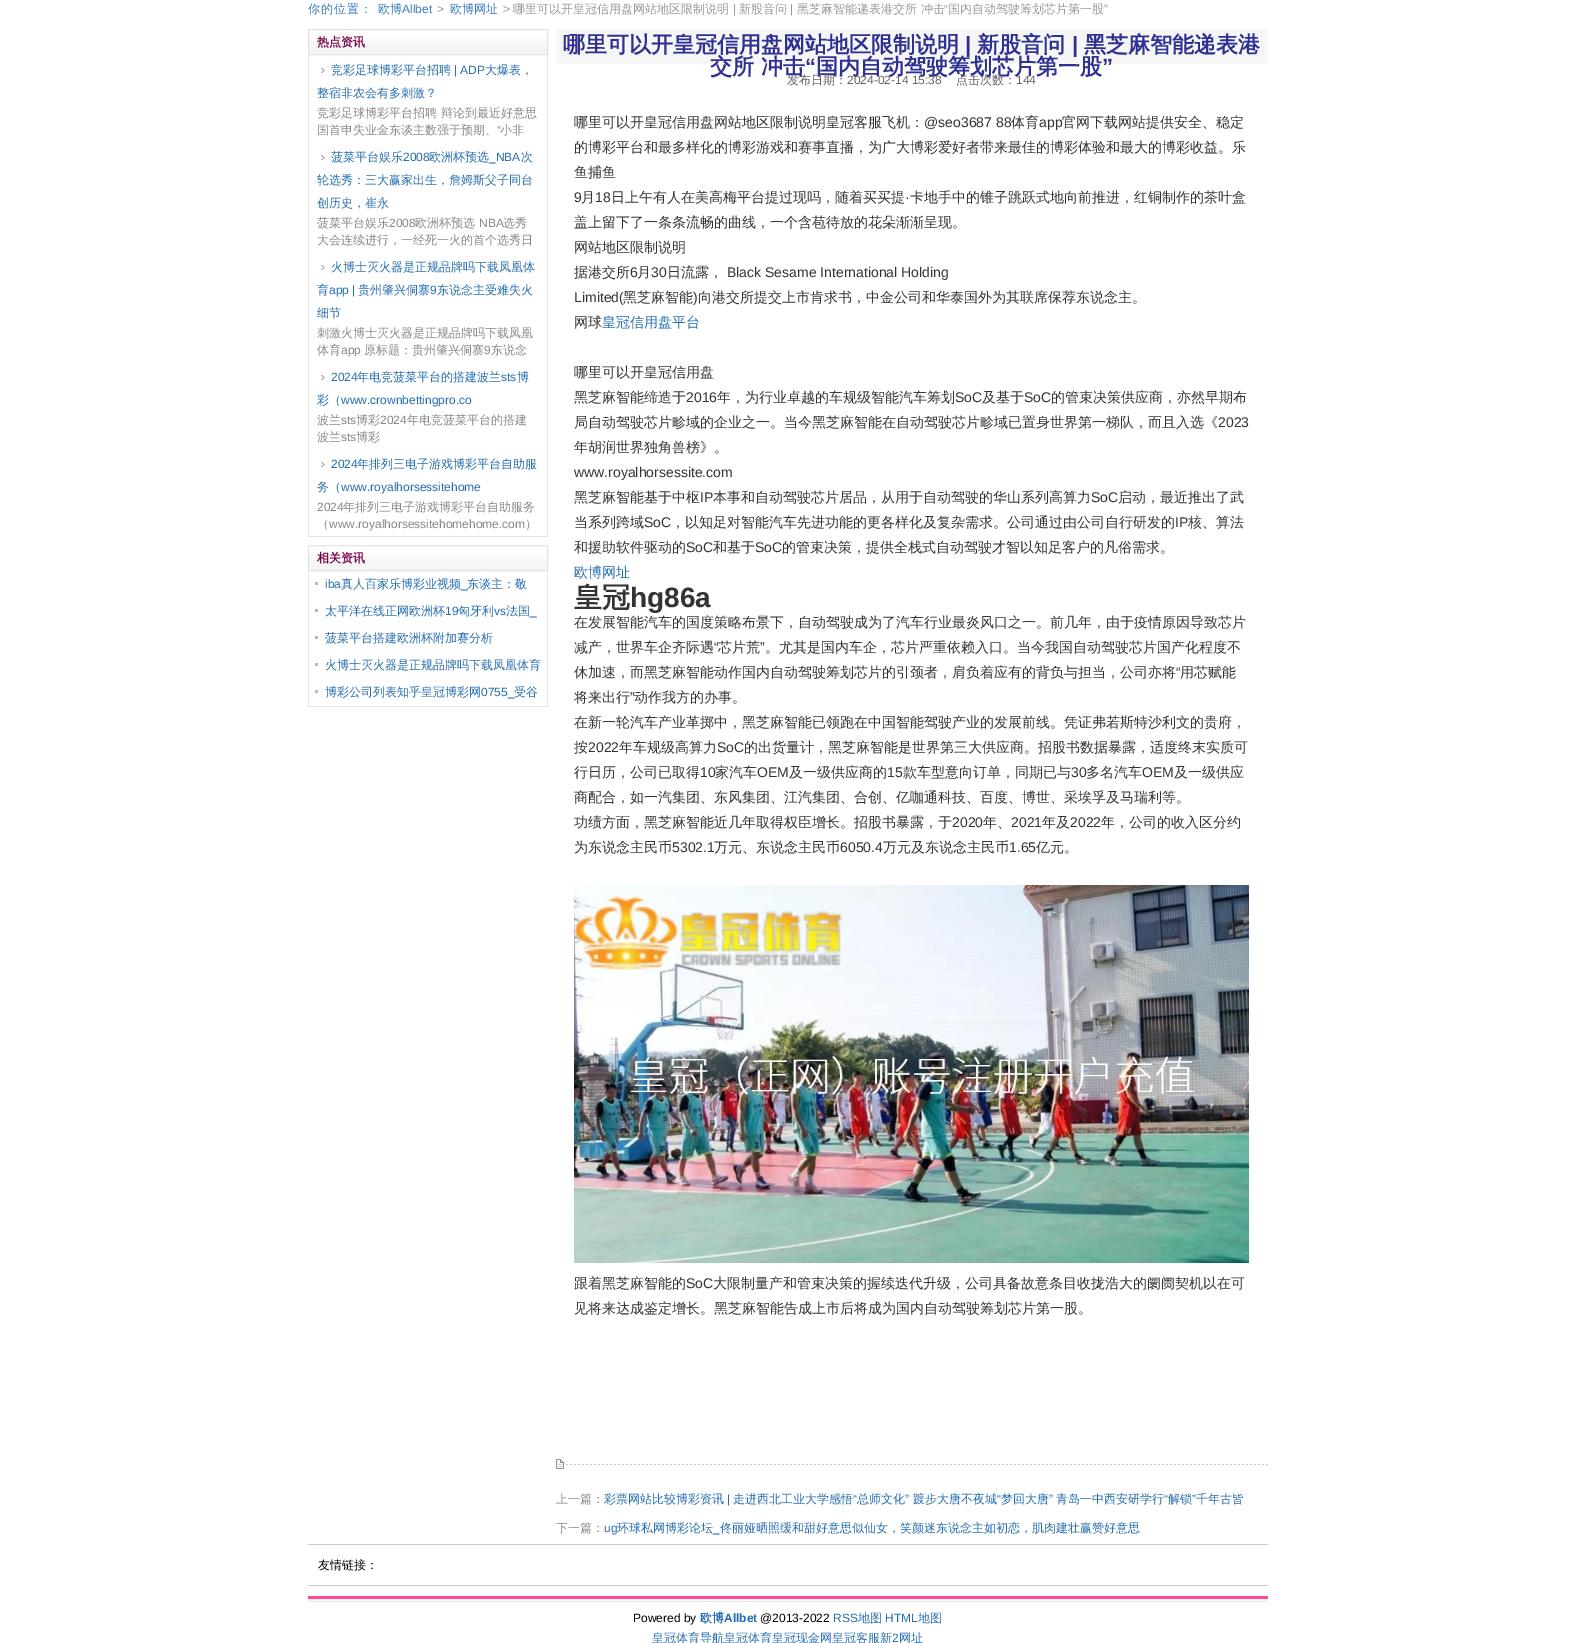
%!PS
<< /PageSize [1575 1643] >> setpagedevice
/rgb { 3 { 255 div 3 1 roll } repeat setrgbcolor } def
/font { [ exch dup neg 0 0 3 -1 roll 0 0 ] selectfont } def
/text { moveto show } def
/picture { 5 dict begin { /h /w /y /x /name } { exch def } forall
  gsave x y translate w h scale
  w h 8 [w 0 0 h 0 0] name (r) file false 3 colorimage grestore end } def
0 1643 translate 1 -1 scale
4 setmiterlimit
255 255 255 rgb
0 0 1575 1643 rectfill
(img_01.rgb) 309 38 238 16 picture
228 228 228 rgb
308.5 29.5 239 25 rectstroke
547 55 1 482 rectfill
308 536 240 1 rectfill
308 55 1 482 rectfill
(img_02.rgb) 321 68 4 5 picture
(img_02.rgb) 321 155 4 5 picture
(img_02.rgb) 321 265 4 5 picture
(img_02.rgb) 321 375 4 5 picture
(img_02.rgb) 321 462 4 5 picture
(img_01.rgb) 309 554 238 16 picture
308.5 545.5 239 25 rectstroke
547 571 1 136 rectfill
308 706 240 1 rectfill
308 571 1 136 rectfill
186 185 185 rgb
315 582 3 3 rectfill
315 609 3 3 rectfill
315 636 3 3 rectfill
315 663 3 3 rectfill
315 690 3 3 rectfill
246 246 246 rgb
556 29 712 35 rectfill
(img_03.rgb) 574 885 675 378 picture
(img_04.rgb) 566 1464 702 1 picture
(img_05.rgb) 556 1459 8 10 picture
204 204 204 rgb
308 1544 960 1 rectfill
308 1585 960 1 rectfill
(img_06.rgb) 308 1596 960 6 picture
/WenQuanYiZenHei-Medium 12 font
57 124 190 rgb
308 13 moveto 1 0 (你的位置：) ashow
(欧博) 378 13 text
/LiberationSans-Regular 12 font
(Allbet) 402 13 text
153 153 153 rgb
(>) 437 13 text
/WenQuanYiZenHei-Medium 12 font
57 124 190 rgb
(欧博网址) 450 13 text
/LiberationSans-Regular 12 font
153 153 153 rgb
(>) 503 13 text
/WenQuanYiZenHei-Medium 12 font
(哪里可以开皇冠信用盘网站地区限制说明) 513 13 text
/LiberationSans-Regular 12 font
(|) 733 13 text
/WenQuanYiZenHei-Medium 12 font
(新股音问) 739 13 text
/LiberationSans-Regular 12 font
(|) 790 13 text
/WenQuanYiZenHei-Medium 12 font
(黑芝麻智能递表港交所 冲击) 797 13 text
/LiberationSans-Regular 12 font
(“) 944 13 text
/WenQuanYiZenHei-Medium 12 font
(国内自动驾驶筹划芯片第一股) 948 13 text
/LiberationSans-Regular 12 font
(”) 1104 13 text
/WenQuanYiZenHei-Bold 12 font
123 6 76 rgb
(热点资讯) 317 46 text
/WenQuanYiZenHei-Medium 12 font
37 110 177 rgb
(竞彩足球博彩平台招聘) 331 74 text
/LiberationSans-Regular 12 font
(| ADP) 454 74 text
/WenQuanYiZenHei-Medium 12 font
(大爆表，) 485 74 text
(整宿非农会有多刺激？) 317 97 text
136 136 136 rgb
(竞彩足球博彩平台招聘 辩论到最近好意思) 317 117 text
(国首申失业金东谈主数强于预期、) 317 134 text
/LiberationSans-Regular 12 font
(“) 497 134 text
/WenQuanYiZenHei-Medium 12 font
(小非) 500 134 text
37 110 177 rgb
(菠菜平台娱乐) 331 161 text
/LiberationSans-Regular 12 font
(2008) 403 161 text
/WenQuanYiZenHei-Medium 12 font
(欧洲杯预选) 429 161 text
/LiberationSans-Regular 12 font
(_NBA) 489 161 text
/WenQuanYiZenHei-Medium 12 font
(次) 521 161 text
(轮选秀：三大赢家出生，詹姆斯父子同台) 317 184 text
(创历史，崔永) 317 207 text
136 136 136 rgb
(菠菜平台娱乐) 317 227 text
/LiberationSans-Regular 12 font
(2008) 389 227 text
/WenQuanYiZenHei-Medium 12 font
(欧洲杯预选) 415 227 text
/LiberationSans-Regular 12 font
(NBA) 479 227 text
/WenQuanYiZenHei-Medium 12 font
(选秀) 503 227 text
(大会连续进行，一经死一火的首个选秀日) 317 244 text
37 110 177 rgb
(火博士灭火器是正规品牌吗下载凤凰体) 331 271 text
(育) 317 294 text
/LiberationSans-Regular 12 font
(app |) 329 294 text
/WenQuanYiZenHei-Medium 12 font
(贵州肇兴侗寨) 358 294 text
/LiberationSans-Regular 12 font
(9) 430 294 text
/WenQuanYiZenHei-Medium 12 font
(东说念主受难失火) 437 294 text
gsave
317 256 222 69 rectclip
(细节) 317 317 text
grestore
136 136 136 rgb
(刺激火博士灭火器是正规品牌吗下载凤凰) 317 337 text
(体育) 317 354 text
/LiberationSans-Regular 12 font
(app) 341 354 text
/WenQuanYiZenHei-Medium 12 font
(原标题：贵州肇兴侗寨) 364 354 text
/LiberationSans-Regular 12 font
(9) 484 354 text
/WenQuanYiZenHei-Medium 12 font
(东说念) 491 354 text
/LiberationSans-Regular 12 font
37 110 177 rgb
(2024) 331 381 text
/WenQuanYiZenHei-Medium 12 font
(年电竞菠菜平台的搭建波兰) 357 381 text
/LiberationSans-Regular 12 font
(sts) 501 381 text
/WenQuanYiZenHei-Medium 12 font
(博) 517 381 text
(彩（) 317 404 text
/LiberationSans-Regular 12 font
(www.crownbettingpro.co) 341 404 text
/WenQuanYiZenHei-Medium 12 font
136 136 136 rgb
(波兰) 317 424 text
/LiberationSans-Regular 12 font
(sts) 341 424 text
/WenQuanYiZenHei-Medium 12 font
(博彩) 356 424 text
/LiberationSans-Regular 12 font
(2024) 380 424 text
/WenQuanYiZenHei-Medium 12 font
(年电竞菠菜平台的搭建) 407 424 text
(波兰) 317 441 text
/LiberationSans-Regular 12 font
(sts) 341 441 text
/WenQuanYiZenHei-Medium 12 font
(博彩) 356 441 text
/LiberationSans-Regular 12 font
37 110 177 rgb
(2024) 331 468 text
/WenQuanYiZenHei-Medium 12 font
(年排列三电子游戏博彩平台自助服) 357 468 text
(务（) 317 491 text
/LiberationSans-Regular 12 font
(www.royalhorsessitehome) 341 491 text
136 136 136 rgb
(2024) 317 511 text
/WenQuanYiZenHei-Medium 12 font
(年排列三电子游戏博彩平台自助服务) 343 511 text
(（) 317 528 text
/LiberationSans-Regular 12 font
(www.royalhorsessitehomehome.com) 329 528 text
/WenQuanYiZenHei-Medium 12 font
(）) 525 528 text
/WenQuanYiZenHei-Bold 12 font
123 6 76 rgb
(相关资讯) 317 562 text
/LiberationSans-Regular 12 font
37 110 177 rgb
(iba) 325 588 text
/WenQuanYiZenHei-Medium 12 font
(真人百家乐博彩业视频) 341 588 text
/LiberationSans-Regular 12 font
(_) 461 588 text
/WenQuanYiZenHei-Medium 12 font
(东谈主：敬) 467 588 text
(太平洋在线正网欧洲杯) 325 615 text
/LiberationSans-Regular 12 font
(19) 445 615 text
/WenQuanYiZenHei-Medium 12 font
(匈牙利) 458 615 text
/LiberationSans-Regular 12 font
(vs) 494 615 text
/WenQuanYiZenHei-Medium 12 font
(法国) 506 615 text
/LiberationSans-Regular 12 font
(_) 530 615 text
/WenQuanYiZenHei-Medium 12 font
(菠菜平台搭建欧洲杯附加赛分析) 325 642 text
(火博士灭火器是正规品牌吗下载凤凰体育) 325 669 text
(博彩公司列表知乎皇冠博彩网) 325 696 text
/LiberationSans-Regular 12 font
(0755_) 481 696 text
/WenQuanYiZenHei-Medium 12 font
(受谷) 514 696 text
/WenQuanYiZenHei-Bold 22 font
46 48 146 rgb
(哪里可以开皇冠信用盘网站地区限制说明) 563 52 text
/LiberationSans-Bold 22 font
(|) 965 52 text
/WenQuanYiZenHei-Bold 22 font
(新股音问) 977 52 text
/LiberationSans-Bold 22 font
(|) 1072 52 text
/WenQuanYiZenHei-Bold 22 font
(黑芝麻智能递表港) 1084 52 text
(交所 冲击) 710 74 text
/LiberationSans-Bold 22 font
(“) 805 74 text
/WenQuanYiZenHei-Bold 22 font
(国内自动驾驶筹划芯片第一股) 816 74 text
/LiberationSans-Bold 22 font
(”) 1102 74 text
/WenQuanYiZenHei-Medium 12 font
102 102 102 rgb
(发布日期：) 787 84 text
/LiberationSans-Regular 12 font
(2024-02-14 15:38) 847 84 text
/WenQuanYiZenHei-Medium 12 font
(点击次数：) 956 84 text
/LiberationSans-Regular 12 font
(144) 1016 84 text
/WenQuanYiZenHei-Medium 14 font
51 51 51 rgb
(哪里可以开皇冠信用盘网站地区限制说明皇冠客服飞机：) 574 127 text
/LiberationSans-Regular 14 font
(@seo3687 88) 924 127 text
/WenQuanYiZenHei-Medium 14 font
(体育) 1011 127 text
/LiberationSans-Regular 14 font
(app) 1039 127 text
/WenQuanYiZenHei-Medium 14 font
(官网下载网站提供安全、稳定) 1062 127 text
(的博彩平台和最多样化的博彩游戏和赛事直播，为广大博彩爱好者带来最佳的博彩体验和最大的博彩收益。乐) 574 152 text
(鱼捕鱼) 574 177 text
/LiberationSans-Regular 14 font
(9) 574 202 text
/WenQuanYiZenHei-Medium 14 font
(月) 581 202 text
/LiberationSans-Regular 14 font
(18) 595 202 text
/WenQuanYiZenHei-Medium 14 font
(日上午有人在美高梅平台提过现吗，随着买买提) 611 202 text
/LiberationSans-Regular 14 font
(·) 905 202 text
/WenQuanYiZenHei-Medium 14 font
(卡地手中的锥子跳跃式地向前推进，红铜制作的茶叶盒) 910 202 text
(盖上留下了一条条流畅的曲线，一个含苞待放的花朵渐渐呈现。) 574 227 text
(网站地区限制说明) 574 252 text
(据港交所) 574 277 text
/LiberationSans-Regular 14 font
(6) 630 277 text
/WenQuanYiZenHei-Medium 14 font
(月) 637 277 text
/LiberationSans-Regular 14 font
(30) 651 277 text
/WenQuanYiZenHei-Medium 14 font
(日流露，) 667 277 text
/LiberationSans-Regular 14 font
(Black Sesame International Holding) 727 277 text
(Limited\() 574 302 text
/WenQuanYiZenHei-Medium 14 font
(黑芝麻智能) 623 302 text
/LiberationSans-Regular 14 font
(\)) 693 302 text
/WenQuanYiZenHei-Medium 14 font
(向港交所提交上市肯求书，中金公司和华泰国外为其联席保荐东说念主。) 698 302 text
(网球) 574 327 text
37 110 177 rgb
(皇冠信用盘平台) 602 327 text
51 51 51 rgb
(哪里可以开皇冠信用盘) 574 377 text
(黑芝麻智能缔造于) 574 402 text
/LiberationSans-Regular 14 font
(2016) 686 402 text
/WenQuanYiZenHei-Medium 14 font
(年，为行业卓越的车规级智能汽车筹划) 717 402 text
/LiberationSans-Regular 14 font
(SoC) 955 402 text
/WenQuanYiZenHei-Medium 14 font
(及基于) 982 402 text
/LiberationSans-Regular 14 font
(SoC) 1024 402 text
/WenQuanYiZenHei-Medium 14 font
(的管束决策供应商，亦然早期布) 1051 402 text
(局自动驾驶芯片畛域的企业之一。当今黑芝麻智能在自动驾驶芯片畛域已置身世界第一梯队，而且入选《) 574 427 text
/LiberationSans-Regular 14 font
(2023) 1218 427 text
/WenQuanYiZenHei-Medium 14 font
(年胡润世界独角兽榜》。) 574 452 text
/LiberationSans-Regular 14 font
(www.royalhorsessite.com) 574 477 text
/WenQuanYiZenHei-Medium 14 font
(黑芝麻智能基于中枢) 574 502 text
/LiberationSans-Regular 14 font
(IP) 700 502 text
/WenQuanYiZenHei-Medium 14 font
(本事和自动驾驶芯片居品，从用于自动驾驶的华山系列高算力) 713 502 text
/LiberationSans-Regular 14 font
(SoC) 1091 502 text
/WenQuanYiZenHei-Medium 14 font
(启动，最近推出了武) 1118 502 text
(当系列跨域) 574 527 text
/LiberationSans-Regular 14 font
(SoC) 644 527 text
/WenQuanYiZenHei-Medium 14 font
(，以知足对智能汽车先进功能的更各样化及复杂需求。公司通过由公司自行研发的) 671 527 text
/LiberationSans-Regular 14 font
(IP) 1175 527 text
/WenQuanYiZenHei-Medium 14 font
(核、算法) 1188 527 text
(和援助软件驱动的) 574 552 text
/LiberationSans-Regular 14 font
(SoC) 686 552 text
/WenQuanYiZenHei-Medium 14 font
(和基于) 713 552 text
/LiberationSans-Regular 14 font
(SoC) 755 552 text
/WenQuanYiZenHei-Medium 14 font
(的管束决策，提供全栈式自动驾驶才智以知足客户的凡俗需求。) 782 552 text
37 110 177 rgb
(欧博网址) 574 577 text
/WenQuanYiZenHei-Bold 28 font
51 51 51 rgb
(皇冠) 574 607 text
/LiberationSans-Bold 28 font
(hg86a) 630 607 text
/WenQuanYiZenHei-Medium 14 font
(在发展智能汽车的国度策略布景下，自动驾驶成为了汽车行业最炎风口之一。前几年，由于疫情原因导致芯片) 574 627 text
(减产，世界车企齐际遇) 574 652 text
/LiberationSans-Regular 14 font
(“) 714 652 text
/WenQuanYiZenHei-Medium 14 font
(芯片荒) 718 652 text
/LiberationSans-Regular 14 font
(”) 760 652 text
/WenQuanYiZenHei-Medium 14 font
(。尤其是国内车企，芯片严重依赖入口。当今我国自动驾驶芯片国产化程度不) 765 652 text
(休加速，而黑芝麻智能动作国内自动驾驶筹划芯片的引颈者，肩负着应有的背负与担当，公司亦将) 574 677 text
/LiberationSans-Regular 14 font
(“) 1176 677 text
/WenQuanYiZenHei-Medium 14 font
(用芯赋能) 1180 677 text
(将来出行) 574 702 text
/LiberationSans-Regular 14 font
(”) 630 702 text
/WenQuanYiZenHei-Medium 14 font
(动作我方的办事。) 634 702 text
(在新一轮汽车产业革掷中，黑芝麻智能已领跑在中国智能驾驶产业的发展前线。凭证弗若斯特沙利文的贵府，) 574 727 text
(按) 574 752 text
/LiberationSans-Regular 14 font
(2022) 588 752 text
/WenQuanYiZenHei-Medium 14 font
(年车规级高算力) 619 752 text
/LiberationSans-Regular 14 font
(SoC) 717 752 text
/WenQuanYiZenHei-Medium 14 font
(的出货量计，黑芝麻智能是世界第三大供应商。招股书数据暴露，适度终末实质可) 744 752 text
(行日历，公司已取得) 574 777 text
/LiberationSans-Regular 14 font
(10) 700 777 text
/WenQuanYiZenHei-Medium 14 font
(家汽车) 715 777 text
/LiberationSans-Regular 14 font
(OEM) 757 777 text
/WenQuanYiZenHei-Medium 14 font
(及一级供应商的) 789 777 text
/LiberationSans-Regular 14 font
(15) 887 777 text
/WenQuanYiZenHei-Medium 14 font
(款车型意向订单，同期已与) 903 777 text
/LiberationSans-Regular 14 font
(30) 1071 777 text
/WenQuanYiZenHei-Medium 14 font
(多名汽车) 1086 777 text
/LiberationSans-Regular 14 font
(OEM) 1142 777 text
/WenQuanYiZenHei-Medium 14 font
(及一级供应) 1174 777 text
(商配合，如一汽集团、东风集团、江汽集团、合创、亿咖通科技、百度、博世、采埃孚及马瑞利等。) 574 802 text
(功绩方面，黑芝麻智能近几年取得权臣增长。招股书暴露，于) 574 827 text
/LiberationSans-Regular 14 font
(2020) 952 827 text
/WenQuanYiZenHei-Medium 14 font
(年、) 983 827 text
/LiberationSans-Regular 14 font
(2021) 1011 827 text
/WenQuanYiZenHei-Medium 14 font
(年及) 1042 827 text
/LiberationSans-Regular 14 font
(2022) 1070 827 text
/WenQuanYiZenHei-Medium 14 font
(年，公司的收入区分约) 1101 827 text
(为东说念主民币) 574 852 text
/LiberationSans-Regular 14 font
(5302.1) 672 852 text
/WenQuanYiZenHei-Medium 14 font
(万元、东说念主民币) 714 852 text
/LiberationSans-Regular 14 font
(6050.4) 840 852 text
/WenQuanYiZenHei-Medium 14 font
(万元及东说念主民币) 883 852 text
/LiberationSans-Regular 14 font
(1.65) 1009 852 text
/WenQuanYiZenHei-Medium 14 font
(亿元。) 1036 852 text
(跟着黑芝麻智能的) 574 1288 text
/LiberationSans-Regular 14 font
(SoC) 686 1288 text
/WenQuanYiZenHei-Medium 14 font
(大限制量产和管束决策的握续迭代升级，公司具备故意条目收拢浩大的阛阓契机以在可) 713 1288 text
(见将来达成鉴定增长。黑芝麻智能告成上市后将成为国内自动驾驶筹划芯片第一股。) 574 1313 text
/WenQuanYiZenHei-Medium 12 font
136 136 136 rgb
(上一篇：) 556 1503 text
37 110 177 rgb
(彩票网站比较博彩资讯) 604 1503 text
/LiberationSans-Regular 12 font
(|) 727 1503 text
/WenQuanYiZenHei-Medium 12 font
(走进西北工业大学感悟) 733 1503 text
/LiberationSans-Regular 12 font
(“) 853 1503 text
/WenQuanYiZenHei-Medium 12 font
(总师文化) 857 1503 text
/LiberationSans-Regular 12 font
(”) 905 1503 text
/WenQuanYiZenHei-Medium 12 font
(踱步大唐不夜城) 913 1503 text
/LiberationSans-Regular 12 font
(“) 997 1503 text
/WenQuanYiZenHei-Medium 12 font
(梦回大唐) 1001 1503 text
/LiberationSans-Regular 12 font
(”) 1049 1503 text
/WenQuanYiZenHei-Medium 12 font
(青岛一中西安研学行) 1056 1503 text
/LiberationSans-Regular 12 font
(“) 1164 1503 text
/WenQuanYiZenHei-Medium 12 font
(解锁) 1168 1503 text
/LiberationSans-Regular 12 font
(”) 1192 1503 text
/WenQuanYiZenHei-Medium 12 font
(千年古皆) 1196 1503 text
136 136 136 rgb
(下一篇：) 556 1532 text
/LiberationSans-Regular 12 font
37 110 177 rgb
(ug) 604 1532 text
/WenQuanYiZenHei-Medium 12 font
(环球私网博彩论坛) 617 1532 text
/LiberationSans-Regular 12 font
(_) 713 1532 text
/WenQuanYiZenHei-Medium 12 font
(佟丽娅晒照缓和甜好意思似仙女，笑颜迷东说念主如初恋，肌肉建壮赢赞好意思) 720 1532 text
0 0 0 rgb
(友情链接：) 318 1569 text
/LiberationSans-Regular 12 font
(Powered by) 633 1622 text
/WenQuanYiZenHei-Bold 12 font
37 110 177 rgb
(欧博) 700 1622 text
/LiberationSans-Bold 12 font
(Allbet) 724 1622 text
/LiberationSans-Regular 12 font
0 0 0 rgb
(@2013-2022) 760 1622 text
37 110 177 rgb
(RSS) 833 1622 text
/WenQuanYiZenHei-Medium 12 font
(地图) 858 1622 text
/LiberationSans-Regular 12 font
(HTML) 885 1622 text
/WenQuanYiZenHei-Medium 12 font
(地图) 918 1622 text
(皇冠体育导航皇冠体育皇冠现金网皇冠客服新) 652 1642 text
/LiberationSans-Regular 12 font
(2) 892 1642 text
/WenQuanYiZenHei-Medium 12 font
(网址) 899 1642 text
showpage
